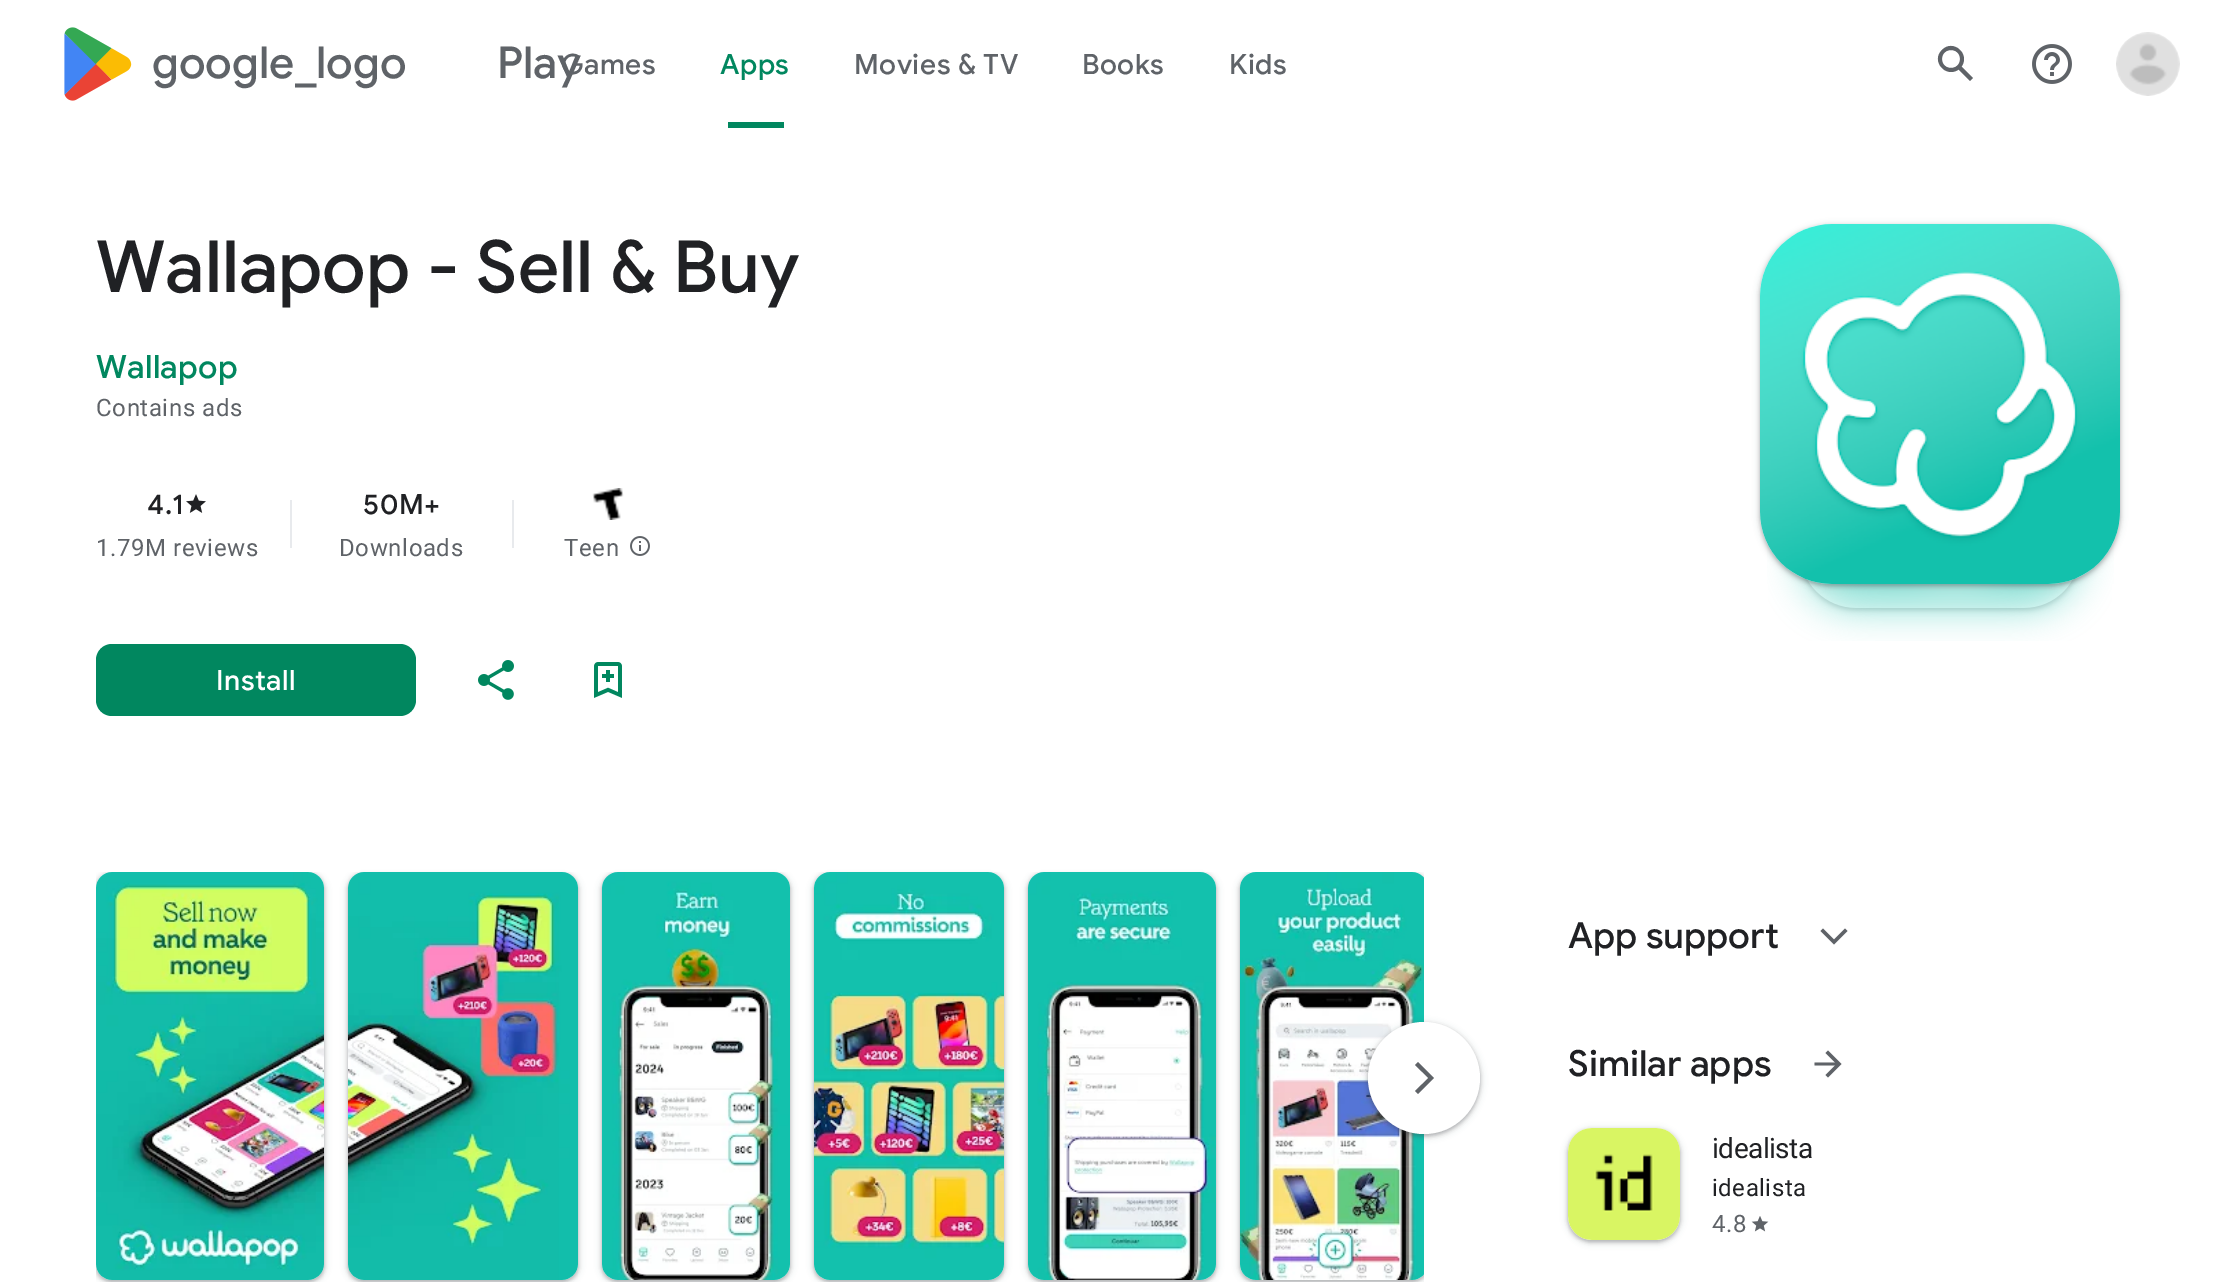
%!PS
<< /PageSize [2215 1282] /PageUsesTransparency true >> setpagedevice
/rgb { 3 { 255 div 3 1 roll } repeat setrgbcolor } def
/font { [ exch dup neg 0 0 3 -1 roll 0 0 ] selectfont } def
/text { moveto show } def
/alpha { dup .setfillconstantalpha .setstrokeconstantalpha } def
/circle { newpath 0 360 arc closepath } def
/roundrect { 5 dict begin { /r /h /w /y /x } { exch def } forall
  x r add y moveto x w add y 2 copy h add r arct x w add y h add x 1 index r arct
  x y h add x y r arct x y 2 copy exch w add exch r arct closepath end } def
/shadow { 12 dict begin { /a /b /q /h /w /y /x } { exch def } forall gsave /was 0 def
  9 -2 -9 { dup b mul 4 div /e exch def 1 sub .425 mul 2.718 exch exp 1 add a .99 .min exch div /now exch def
    1 1 now sub 1 was sub div sub alpha /was now def
    w h .min e 2 mul add 0 gt { x e sub y e sub w e 2 mul add h e 2 mul add
      q e add b .6 mul add w h .min 2 div e add .min 0 .max roundrect fill } if } for grestore end } def
/picture { 5 dict begin { /h /w /y /x /name } { exch def } forall
  gsave x y translate w h scale
  w h 8 [w 0 0 h 0 0] name (r) file false 3 colorimage grestore end } def
0 .pushpdf14devicefilter
0 1282 translate 1 -1 scale
4 setmiterlimit
255 255 255 rgb
0 0 2215 1282 rectfill
(img_01.rgb) 64 27 68 74 picture
1 135 95 rgb
728 122 56 6 rectfill
95 99 104 rgb
1973 78 moveto -11.5 -11.5 rlineto 9 -12.5 -8.5 -28 -19.5 -16.5 rcurveto -11.5 11 4 28.5 16.5 19.5 rcurveto 11.5 11.5 rlineto closepath 1942 59 moveto 0 -12 18 -12 18 0 rcurveto 0 12 -18 12 -18 0 rcurveto closepath fill
(img_02.rgb) 2032 44 40 40 picture
(img_03.rgb) 2116 32 64 64 picture
(img_04.rgb) 186 494 20 19 picture
232 234 237 rgb
290 500 2 48 rectfill
512 500 2 48 rectfill
(img_05.rgb) 592 488 32 32 picture
(img_06.rgb) 630 536 20 20 picture
gsave
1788 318 moveto 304 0 rlineto 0 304 rlineto -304 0 rlineto closepath 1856 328 moveto 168 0 rlineto 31 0 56 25 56 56 rcurveto 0 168 rlineto 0 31 -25 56 -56 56 rcurveto -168 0 rlineto -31 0 -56 -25 -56 -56 rcurveto 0 -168 rlineto 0 -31 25 -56 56 -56 rcurveto closepath eoclip newpath
158 160 161 rgb
1798 328 284 284 58 3 0.15 shadow
grestore
gsave
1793 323 moveto 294 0 rlineto 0 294 rlineto -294 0 rlineto closepath 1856 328 moveto 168 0 rlineto 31 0 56 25 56 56 rcurveto 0 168 rlineto 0 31 -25 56 -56 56 rcurveto -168 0 rlineto -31 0 -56 -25 -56 -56 rcurveto 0 -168 rlineto 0 -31 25 -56 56 -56 rcurveto closepath eoclip newpath
158 160 161 rgb
1800 330 280 280 56 2 0.3 shadow
grestore
(img_08.rgb) 1768 544 344 97 picture
60 64 67 rgb
1758 224 364 364 74 3 0.15 shadow
1760 226 360 360 72 2 0.3 shadow
(img_07.rgb) 1760 224 360 360 picture
1 135 95 rgb
96 644 320 72 16 roundrect fill
(img_09.rgb) 478 660 36 40 picture
(img_10.rgb) 594 662 28 36 picture
gsave
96 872 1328 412 rectclip
60 64 67 rgb
94 872 232 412 18 3 0.15 shadow
96 874 228 408 16 2 0.3 shadow
grestore
(img_11.rgb) 96 872 228 408 picture
gsave
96 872 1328 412 rectclip
60 64 67 rgb
346 872 234 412 18 3 0.15 shadow
grestore
60 64 67 rgb
348 874 230 408 16 2 0.3 shadow
(img_12.rgb) 348 872 230 408 picture
gsave
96 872 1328 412 rectclip
600 872 192 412 18 3 0.15 shadow
grestore
602 874 188 408 16 2 0.3 shadow
(img_13.rgb) 602 872 188 408 picture
gsave
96 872 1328 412 rectclip
812 872 194 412 18 3 0.15 shadow
grestore
814 874 190 408 16 2 0.3 shadow
(img_14.rgb) 814 872 190 408 picture
gsave
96 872 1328 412 rectclip
1026 872 192 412 18 3 0.15 shadow
grestore
1028 874 188 408 16 2 0.3 shadow
(img_15.rgb) 1028 872 188 408 picture
gsave
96 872 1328 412 rectclip
1238 872 192 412 18 3 0.15 shadow
1240 874 188 408 16 2 0.3 shadow
grestore
(img_16.rgb) 1240 872 184 408 picture
1366 1022 116 116 58 3 0.15 shadow
1368 1024 112 112 56 2 0.3 shadow
255 255 255 rgb
1424 1078 56 circle fill
95 99 104 rgb
1415 1091 moveto 3 3 rlineto 16 -16 rlineto -16 -16 rlineto -3 3 rlineto 13.5 13 rlineto closepath fill
1823 928.5 moveto -2.5 2.5 rlineto 13.5 13.5 rlineto 13.5 -13.5 rlineto -2.5 -2.5 rlineto -11 11 rlineto closepath fill
1828 1050.5 moveto -2.5 2.5 rlineto 9.5 9.5 rlineto -20.5 0 rlineto 0 3 rlineto 20.5 0 rlineto -9.5 9.5 rlineto 2.5 2.5 rlineto 13.5 -13.5 rlineto closepath fill
60 64 67 rgb
1566 1128 116 116 26 3 0.15 shadow
1568 1130 112 112 24 2 0.3 shadow
(img_17.rgb) 1568 1128 112 112 picture
(img_18.rgb) 1751 1216 18 16 picture
/GoogleSans-Medium 44 font
95 99 104 rgb
152 78 moveto 110 0 32 (google_logo) widthshow
497 78 moveto 110 0 32 (Play) widthshow
/GoogleSans-Medium 28 font
561 74 moveto 0.5 0 (Games) ashow
1 135 95 rgb
720 74 moveto 0.5 0 (Apps) ashow
95 99 104 rgb
854 74 moveto 0.5 0 (Movies & TV) ashow
1082 74 moveto 0.5 0 (Books) ashow
1229 74 moveto 0.5 0 (Kids) ashow
/GoogleSans-Medium 72 font
32 33 36 rgb
(Wallapop - Sell & Buy) 96 292 text
/GoogleSans-Medium 32 font
1 135 95 rgb
96 378 moveto 0.25 0 (Wallapop) ashow
/Roboto-Regular 24 font
95 99 104 rgb
96 416 moveto 0.6 0 (Contains ads) ashow
/GoogleSans-Medium 28 font
32 33 36 rgb
147 514 moveto 0.5 0 (4.1) ashow
/Roboto-Regular 24 font
95 99 104 rgb
96 556 moveto 0.6 0 (1.79M reviews) ashow
/GoogleSans-Medium 28 font
32 33 36 rgb
363 514 moveto 0.5 0 (50M+) ashow
/Roboto-Regular 24 font
95 99 104 rgb
339 556 moveto 0.6 0 (Downloads) ashow
564 556 moveto 0.6 0 (Teen) ashow
/GoogleSans-Medium 28 font
255 255 255 rgb
216 690 moveto 0.5 0 (Install) ashow
/GoogleSans-Medium 36 font
32 33 36 rgb
(App support) 1568 948 text
(Similar apps) 1568 1076 text
/Roboto-Regular 28 font
1712 1158 moveto -0.5 0 (idealista) ashow
/Roboto-Regular 24 font
1712 1196 moveto 0.5 0 (idealista) ashow
95 99 104 rgb
1712 1232 moveto 0.5 0 (4.8) ashow
.poppdf14devicefilter showpage
